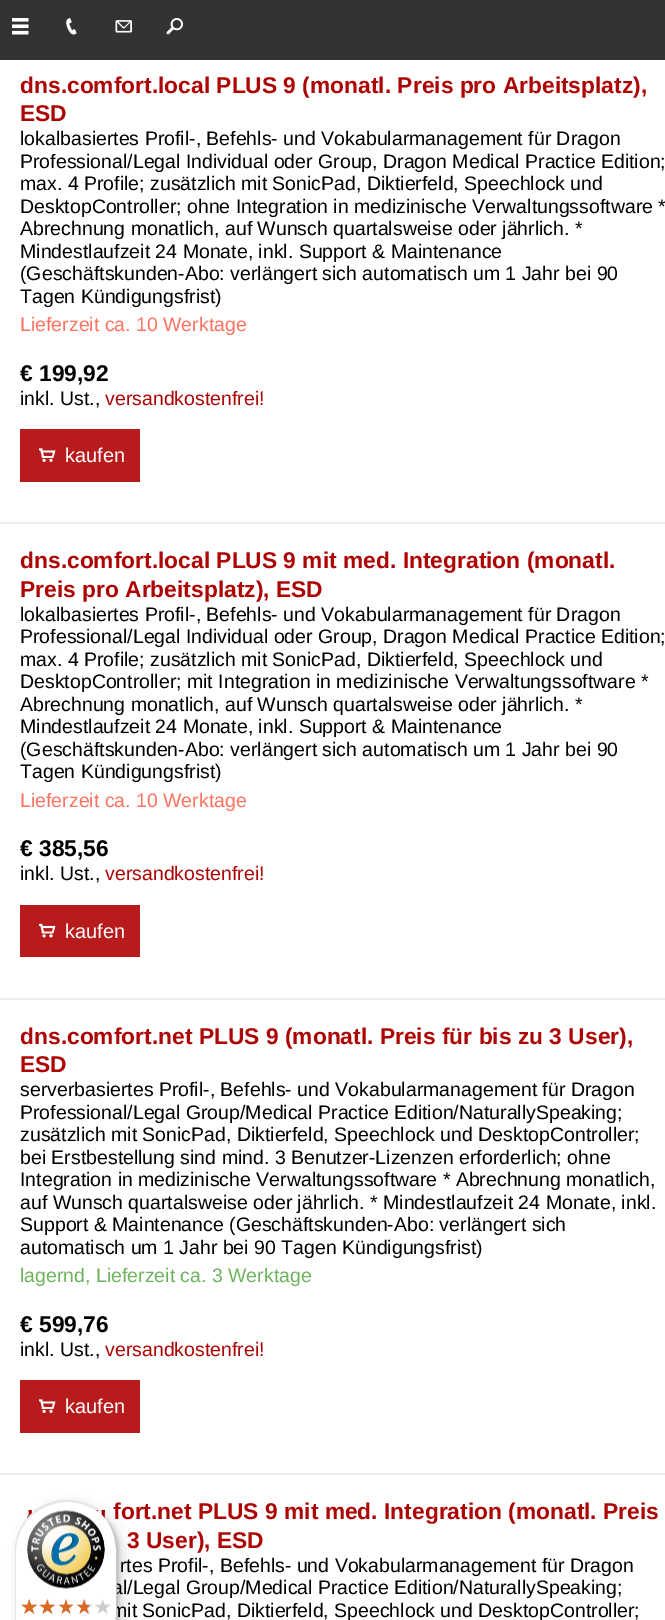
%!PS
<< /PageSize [665 1620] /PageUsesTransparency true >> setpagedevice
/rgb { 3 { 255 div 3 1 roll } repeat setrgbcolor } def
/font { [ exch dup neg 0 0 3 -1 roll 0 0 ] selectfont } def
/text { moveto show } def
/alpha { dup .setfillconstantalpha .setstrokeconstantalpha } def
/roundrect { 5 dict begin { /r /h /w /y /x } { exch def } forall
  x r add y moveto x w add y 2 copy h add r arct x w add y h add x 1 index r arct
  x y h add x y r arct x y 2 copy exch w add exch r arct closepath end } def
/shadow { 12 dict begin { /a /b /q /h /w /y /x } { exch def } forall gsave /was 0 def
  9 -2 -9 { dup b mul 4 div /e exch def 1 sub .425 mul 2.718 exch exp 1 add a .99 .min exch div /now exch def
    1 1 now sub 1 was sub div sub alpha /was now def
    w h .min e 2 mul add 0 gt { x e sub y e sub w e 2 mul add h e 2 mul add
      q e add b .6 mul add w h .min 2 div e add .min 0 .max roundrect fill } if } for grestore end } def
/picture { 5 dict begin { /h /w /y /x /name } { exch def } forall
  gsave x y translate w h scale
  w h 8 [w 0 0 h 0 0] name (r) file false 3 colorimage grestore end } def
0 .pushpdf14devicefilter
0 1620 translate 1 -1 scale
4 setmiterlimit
255 255 255 rgb
0 0 665 1620 rectfill
51 51 51 rgb
0 0 665 60 rectfill
(img_01.rgb) 12 18 17 17 picture
(img_02.rgb) 66 18 11 17 picture
(img_03.rgb) 115 20 17 13 picture
(img_04.rgb) 166 18 17 17 picture
184 27 27 rgb
20 429 120 53 rectfill
(img_05.rgb) 39 448 17 14 picture
238 238 238 rgb
0 522 665 2 rectfill
184 27 27 rgb
20 905 120 52 rectfill
(img_06.rgb) 39 923 17 15 picture
238 238 238 rgb
0 998 665 2 rectfill
184 27 27 rgb
20 1380 120 53 rectfill
(img_05.rgb) 39 1399 17 14 picture
238 238 238 rgb
0 1473 665 2 rectfill
0 0 0 rgb
20 1505 102 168 51 6 0.15 shadow
17 1502 102 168 51 1.5 0.15 shadow
/LiberationSans-Bold 22.8 font
173 4 4 rgb
(dns.comfort.local PLUS 9 \(monatl. Preis pro Arbeitsplatz\),) 20 93 text
(ESD) 20 121 text
/LiberationSans-Regular 19.5 font
0 0 0 rgb
(lokalbasiertes Profil-, Befehls- und Vokabularmanagement für Dragon) 20 145 text
(Professional/Legal Individual oder Group, Dragon Medical Practice Edition;) 20 168 text
(max. 4 Profile; zusätzlich mit SonicPad, Diktierfeld, Speechlock und) 20 190 text
(DesktopController; ohne Integration in medizinische Verwaltungssoftware *) 20 213 text
(Abrechnung monatlich, auf Wunsch quartalsweise oder jährlich. *) 20 235 text
(Mindestlaufzeit 24 Monate, inkl. Support & Maintenance) 20 258 text
(\(Geschäftskunden-Abo: verlängert sich automatisch um 1 Jahr bei 90) 20 280 text
(Tagen Kündigungsfrist\)) 20 303 text
254 115 96 rgb
(Lieferzeit ca. 10 Werktage) 20 331 text
/LiberationSans-Bold 22.8 font
0 0 0 rgb
(€ 199,92) 20 381 text
/LiberationSans-Regular 19.5 font
(inkl. Ust.,) 20 405 text
173 4 4 rgb
(versandkostenfrei!) 105 405 text
/LiberationSans-Regular 20 font
255 255 255 rgb
(kaufen) 65 462 text
/LiberationSans-Bold 22.8 font
173 4 4 rgb
(dns.comfort.local PLUS 9 mit med. Integration \(monatl.) 20 568 text
(Preis pro Arbeitsplatz\), ESD) 20 597 text
/LiberationSans-Regular 19.5 font
0 0 0 rgb
(lokalbasiertes Profil-, Befehls- und Vokabularmanagement für Dragon) 20 621 text
(Professional/Legal Individual oder Group, Dragon Medical Practice Edition;) 20 643 text
(max. 4 Profile; zusätzlich mit SonicPad, Diktierfeld, Speechlock und) 20 666 text
(DesktopController; mit Integration in medizinische Verwaltungssoftware *) 20 688 text
(Abrechnung monatlich, auf Wunsch quartalsweise oder jährlich. *) 20 711 text
(Mindestlaufzeit 24 Monate, inkl. Support & Maintenance) 20 733 text
(\(Geschäftskunden-Abo: verlängert sich automatisch um 1 Jahr bei 90) 20 756 text
(Tagen Kündigungsfrist\)) 20 778 text
254 115 96 rgb
(Lieferzeit ca. 10 Werktage) 20 807 text
/LiberationSans-Bold 22.8 font
0 0 0 rgb
(€ 385,56) 20 856 text
/LiberationSans-Regular 19.5 font
(inkl. Ust.,) 20 880 text
173 4 4 rgb
(versandkostenfrei!) 105 880 text
/LiberationSans-Regular 20 font
255 255 255 rgb
(kaufen) 65 938 text
/LiberationSans-Bold 22.8 font
173 4 4 rgb
(dns.comfort.net PLUS 9 \(monatl. Preis für bis zu 3 User\),) 20 1044 text
(ESD) 20 1072 text
/LiberationSans-Regular 19.5 font
0 0 0 rgb
(serverbasiertes Profil-, Befehls- und Vokabularmanagement für Dragon) 20 1096 text
(Professional/Legal Group/Medical Practice Edition/NaturallySpeaking;) 20 1119 text
(zusätzlich mit SonicPad, Diktierfeld, Speechlock und DesktopController;) 20 1141 text
(bei Erstbestellung sind mind. 3 Benutzer-Lizenzen erforderlich; ohne) 20 1164 text
(Integration in medizinische Verwaltungssoftware * Abrechnung monatlich,) 20 1186 text
(auf Wunsch quartalsweise oder jährlich. * Mindestlaufzeit 24 Monate, inkl.) 20 1209 text
(Support & Maintenance \(Geschäftskunden-Abo: verlängert sich) 20 1231 text
(automatisch um 1 Jahr bei 90 Tagen Kündigungsfrist\)) 20 1254 text
110 179 93 rgb
(lagernd, Lieferzeit ca. 3 Werktage) 20 1282 text
/LiberationSans-Bold 22.8 font
0 0 0 rgb
(€ 599,76) 20 1332 text
/LiberationSans-Regular 19.5 font
(inkl. Ust.,) 20 1356 text
173 4 4 rgb
(versandkostenfrei!) 105 1356 text
/LiberationSans-Regular 20 font
255 255 255 rgb
(kaufen) 65 1413 text
/LiberationSans-Bold 22.8 font
173 4 4 rgb
(fort.net PLUS 9 mit med. Integration \(monatl. Preis) 113 1519 text
(3 User\), ESD) 127 1548 text
/LiberationSans-Regular 19.5 font
0 0 0 rgb
(rtes Profil-, Befehls- und Vokabularmanagement für Dragon) 120 1572 text
(al/Legal Group/Medical Practice Edition/NaturallySpeaking;) 112 1594 text
(mit SonicPad, Diktierfeld, Speechlock und DesktopController;) 111 1617 text
255 255 255 rgb
15 1500 102 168 51 roundrect fill
0.1 alpha
0 0 0 rgb
68 1502 moveto 14 0 27 6 36 15 rcurveto -9 -10 -23 -17 -38 -17 rcurveto -28 0 -51 23 -51 51 rcurveto 0 66 rlineto 0 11 3 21 9 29 rcurveto -5 -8 -8 -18 -8 -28 rcurveto 0 -66 rlineto 0 -28 23 -50 52 -50 rcurveto closepath fill
0.2 alpha
28 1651 moveto 9 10 23 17 38 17 rcurveto 28 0 51 -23 51 -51 rcurveto 0 -66 rlineto 0 -11 -3 -21 -9 -29 rcurveto 5 8 8 18 8 28 rcurveto 0 66 rlineto 0 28 -23 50 -52 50 rcurveto -14 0 -27 -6 -36 -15 rcurveto closepath fill
50 50 50 rgb
27 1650 moveto 10 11 24 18 39 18 rcurveto 28 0 51 -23 51 -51 rcurveto 0 -66 rlineto 0 -15 -7 -29 -18 -39 rcurveto 11 10 17 23 17 38 rcurveto 0 66 rlineto 0 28 -23 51 -51 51 rcurveto -15 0 -28 -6 -38 -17 rcurveto closepath fill
0.3 alpha
255 255 255 rgb
27 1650 moveto 10 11 24 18 39 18 rcurveto 28 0 51 -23 51 -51 rcurveto 0 -66 rlineto 0 -15 -7 -29 -18 -39 rcurveto 11 10 17 23 17 38 rcurveto 0 66 rlineto 0 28 -23 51 -51 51 rcurveto -15 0 -28 -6 -38 -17 rcurveto closepath fill
1 alpha
(img_07.rgb) 27 1510 78 79 picture
(img_08.rgb) 21 1599 16 15 picture
(img_09.rgb) 41 1599 14 15 picture
(img_10.rgb) 59 1599 14 15 picture
(img_11.rgb) 77 1599 16 15 picture
(img_12.rgb) 95 1599 16 15 picture
(img_13.rgb) 21 1599 16 15 picture
(img_14.rgb) 39 1599 16 15 picture
(img_15.rgb) 59 1599 14 15 picture
(img_16.rgb) 77 1599 12 15 picture
.poppdf14devicefilter showpage
